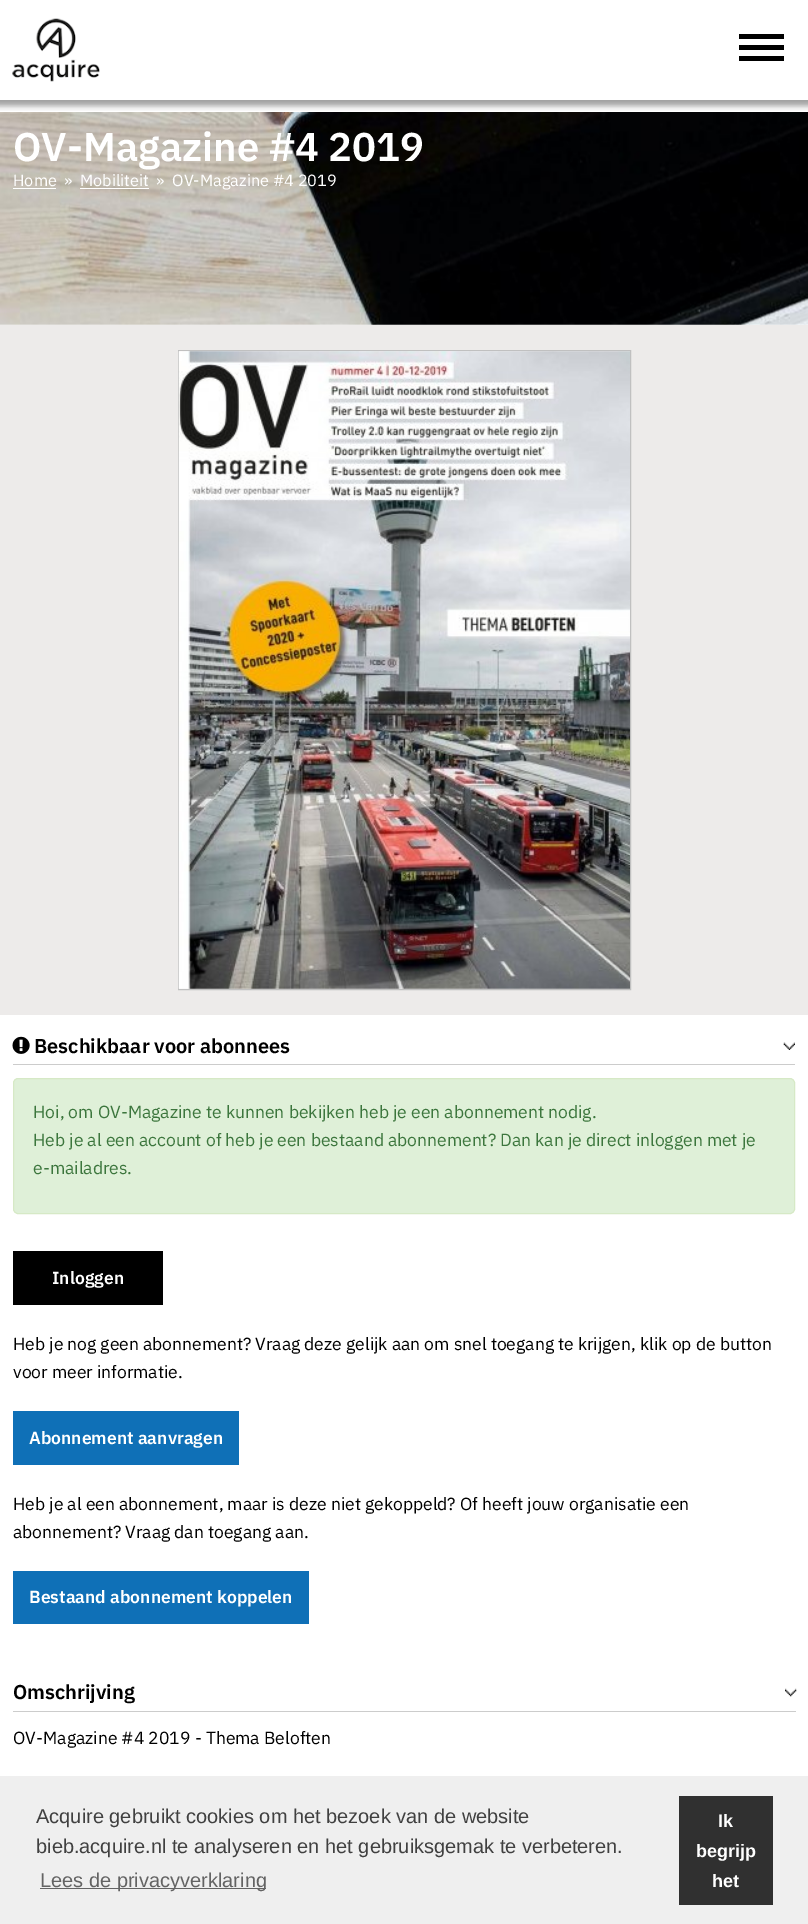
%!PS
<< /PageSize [808 1924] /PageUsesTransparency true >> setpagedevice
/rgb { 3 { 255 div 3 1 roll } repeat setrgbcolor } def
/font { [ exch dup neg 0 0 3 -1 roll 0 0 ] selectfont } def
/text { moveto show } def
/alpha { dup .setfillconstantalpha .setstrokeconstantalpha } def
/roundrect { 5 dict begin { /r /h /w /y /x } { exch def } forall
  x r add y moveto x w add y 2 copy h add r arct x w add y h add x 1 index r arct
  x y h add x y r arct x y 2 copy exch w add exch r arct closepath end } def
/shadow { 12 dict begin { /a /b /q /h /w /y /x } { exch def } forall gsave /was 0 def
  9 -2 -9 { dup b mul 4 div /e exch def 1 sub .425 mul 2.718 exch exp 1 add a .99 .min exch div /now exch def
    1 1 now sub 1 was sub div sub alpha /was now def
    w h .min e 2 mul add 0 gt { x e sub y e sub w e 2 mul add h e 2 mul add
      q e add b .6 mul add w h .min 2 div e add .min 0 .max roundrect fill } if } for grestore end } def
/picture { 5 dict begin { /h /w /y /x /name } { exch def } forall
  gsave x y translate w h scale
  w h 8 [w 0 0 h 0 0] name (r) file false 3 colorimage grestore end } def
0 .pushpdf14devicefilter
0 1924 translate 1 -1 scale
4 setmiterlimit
255 255 255 rgb
0 0 808 1924 rectfill
(img_02.rgb) 0 112 808 213 picture
gsave
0 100 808 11 rectclip
64 64 64 rgb
-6 -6 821 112 0 3 0.5 shadow
grestore
(img_01.rgb) 12 18 88 64 picture
0 0 0 rgb
739 34 45 5 rectfill
739 45 45 5 rectfill
739 56 45 5 rectfill
255 255 255 rgb
13 188 43 1 rectfill
80 188 69 1 rectfill
237 235 234 rgb
0 325 808 690 rectfill
192 192 192 rgb
178.5 350.5 452 639 rectstroke
(img_03.rgb) 178 351 452 638 picture
(img_04.rgb) 783 1042 12 8 picture
204 204 204 rgb
13 1064 782 1 rectfill
(img_05.rgb) 12 1036 18 18 picture
223 240 216 rgb
13.5 1078.5 781 135 4.5 roundrect gsave fill grestore
214 233 198 rgb
stroke
0 0 0 rgb
13 1251 150 54 rectfill
15 112 183 rgb
13 1411 226 54 rectfill
13 1571 296 53 rectfill
(img_06.rgb) 785 1688 12 9 picture
204 204 204 rgb
13 1711 783 1 rectfill
239 239 239 rgb
0 1776 808 148 rectfill
99 99 99 rgb
40 1888 226 1 rectfill
48 48 48 rgb
679 1796 94 109 rectfill
/IBMPlexSans-SemiBold 40 font
255 255 255 rgb
(OV-Magazine #4 2019) 13 161 text
/IBMPlexSans-Regular 16.25 font
(Home) 13 186 text
(») 64 186 text
(Mobiliteit) 80 186 text
(»  OV-Magazine #4 2019) 156 186 text
/IBMPlexSans-SemiBold 20 font
0 0 0 rgb
(Beschikbaar voor abonnees) 34 1053 text
/IBMPlexSans-Regular 17.5 font
60 118 61 rgb
(Hoi, om OV-Magazine te kunnen bekijken heb je een abonnement nodig.) 33 1118 text
(Heb je al een account of heb je een bestaand abonnement? Dan kan je direct inloggen met je) 33 1146 text
(e-mailadres.) 33 1174 text
/IBMPlexSans-SemiBold 17.5 font
255 255 255 rgb
(Inloggen) 52 1284 text
/IBMPlexSans-Regular 17.5 font
0 0 0 rgb
(Heb je nog geen abonnement? Vraag deze gelijk aan om snel toegang te krijgen, klik op de button) 13 1350 text
(voor meer informatie.) 13 1378 text
/IBMPlexSans-SemiBold 17.5 font
255 255 255 rgb
(Abonnement aanvragen) 29 1444 text
/IBMPlexSans-Regular 17.5 font
0 0 0 rgb
(Heb je al een abonnement, maar is deze niet gekoppeld? Of heeft jouw organisatie een) 13 1510 text
(abonnement? Vraag dan toegang aan.) 13 1538 text
/IBMPlexSans-SemiBold 17.5 font
255 255 255 rgb
(Bestaand abonnement koppelen) 29 1603 text
/IBMPlexSans-SemiBold 20 font
0 0 0 rgb
(Omschrijving) 13 1699 text
/IBMPlexSans-Regular 17.5 font
(OV-Magazine #4 2019 - Thema Beloften) 13 1744 text
/LiberationSans-Regular 20 font
64 64 64 rgb
(Acquire gebruikt cookies om het bezoek van de website) 36 1823 text
(bieb.acquire.nl te analyseren en het gebruiksgemak te verbeteren.) 36 1853 text
99 99 99 rgb
(Lees de privacyverklaring) 40 1887 text
/LiberationSans-Bold 18 font
255 255 255 rgb
(Ik) 718 1827 text
(begrijp) 696 1857 text
(het) 712 1887 text
.poppdf14devicefilter showpage
